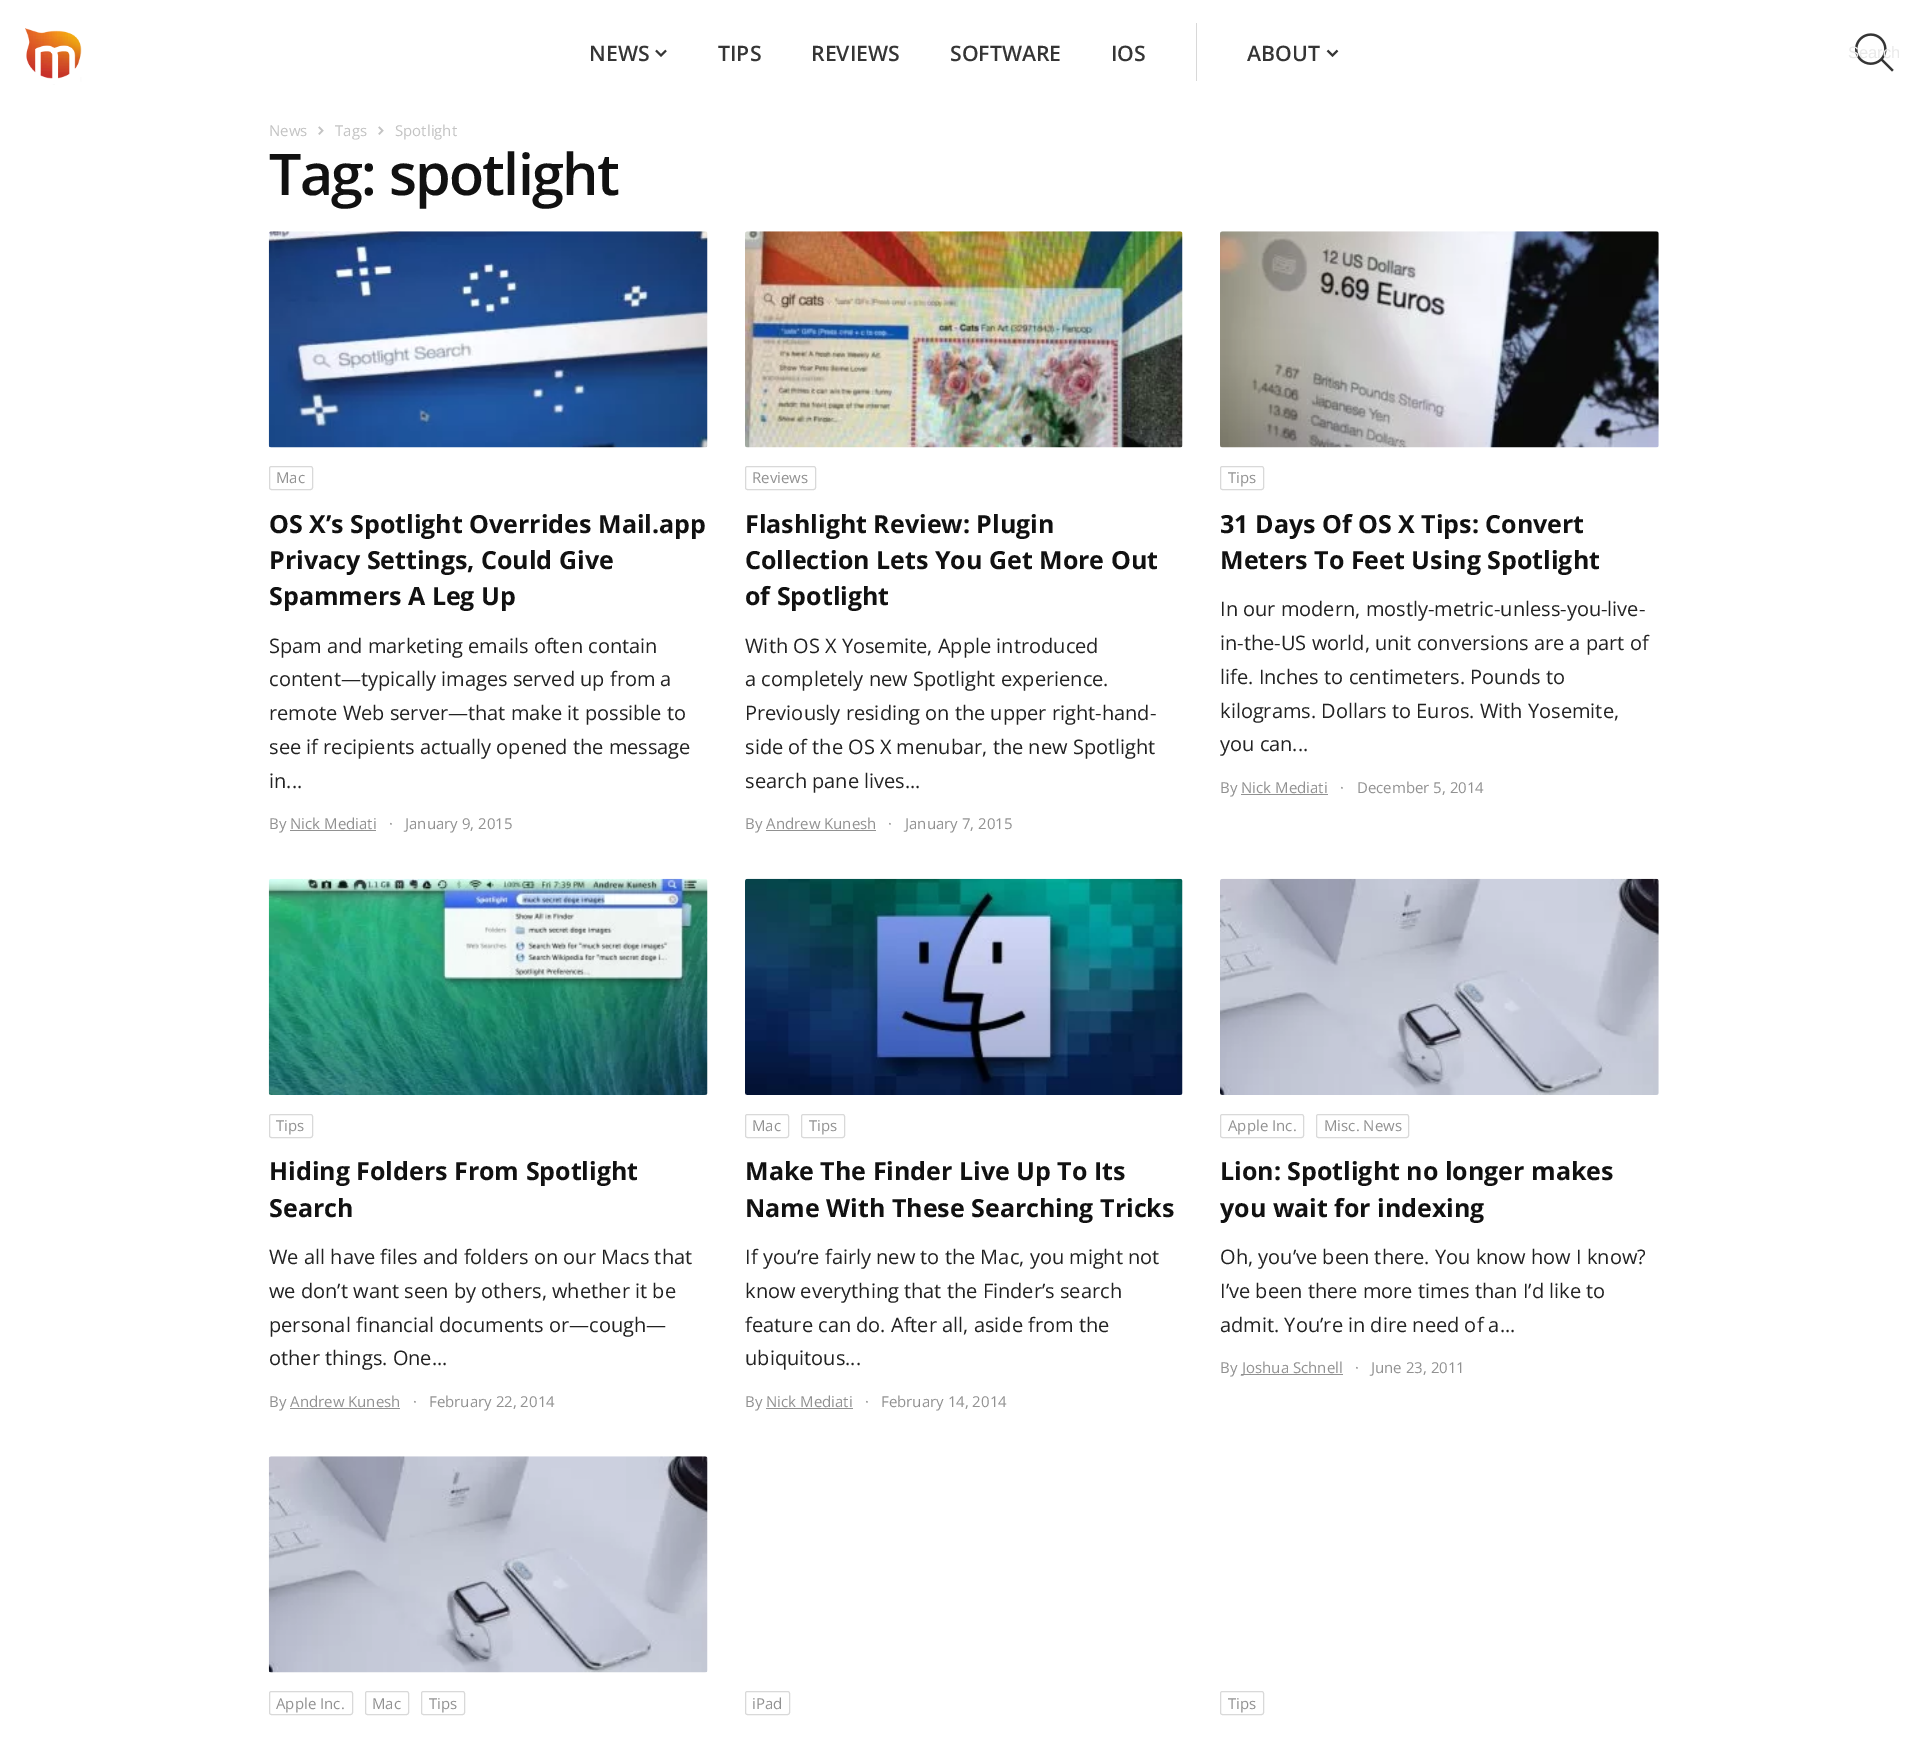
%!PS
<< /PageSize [1927 1743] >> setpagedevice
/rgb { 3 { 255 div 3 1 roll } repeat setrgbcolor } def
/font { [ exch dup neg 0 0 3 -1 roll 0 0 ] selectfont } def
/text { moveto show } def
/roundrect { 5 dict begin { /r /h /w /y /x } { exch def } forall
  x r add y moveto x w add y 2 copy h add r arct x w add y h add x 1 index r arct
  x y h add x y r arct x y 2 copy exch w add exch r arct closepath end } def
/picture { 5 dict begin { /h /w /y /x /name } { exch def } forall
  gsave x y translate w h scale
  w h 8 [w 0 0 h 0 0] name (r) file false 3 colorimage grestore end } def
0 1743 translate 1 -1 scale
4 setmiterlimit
255 255 255 rgb
0 0 1927 1743 rectfill
(img_01.rgb) 25 28 57 57 picture
53 53 53 rgb
1.9 setlinewidth
666 50.5 moveto -5 5 rlineto -5 -5 rlineto stroke
216 216 216 rgb
1196 23 1 58 rectfill
53 53 53 rgb
1337.5 50.5 moveto -5 5 rlineto -5 -5 rlineto stroke
(img_02.rgb) 1855 33 39 39 picture
(img_03.rgb) 318 126 6 9 picture
(img_03.rgb) 378 126 6 9 picture
(img_04.rgb) 268 231 440 217 picture
217 217 217 rgb
1 setlinewidth
269.5 466.5 43 23 2 roundrect stroke
145 145 145 rgb
290 830 86 1 rectfill
(img_05.rgb) 745 231 438 217 picture
217 217 217 rgb
745.5 466.5 70 23 2 roundrect stroke
145 145 145 rgb
766 830 110 1 rectfill
(img_06.rgb) 1220 231 439 217 picture
217 217 217 rgb
1220.5 466.5 43 23 2 roundrect stroke
145 145 145 rgb
1241 794 87 1 rectfill
(img_07.rgb) 268 878 440 217 picture
217 217 217 rgb
269.5 1114.5 43 23 2 roundrect stroke
145 145 145 rgb
290 1408 110 1 rectfill
(img_08.rgb) 745 878 438 217 picture
217 217 217 rgb
745.5 1114.5 43 23 2 roundrect stroke
801.5 1114.5 43 23 2 roundrect stroke
145 145 145 rgb
766 1408 87 1 rectfill
(img_09.rgb) 1220 878 439 217 picture
217 217 217 rgb
1220.5 1114.5 83 23 2 roundrect stroke
1316.5 1114.5 92 23 2 roundrect stroke
145 145 145 rgb
1241 1374 102 1 rectfill
(img_10.rgb) 268 1456 440 217 picture
217 217 217 rgb
269.5 1691.5 83 23 2 roundrect stroke
365.5 1691.5 43 23 2 roundrect stroke
421.5 1691.5 43 23 2 roundrect stroke
745.5 1691.5 44 23 2 roundrect stroke
1220.5 1691.5 43 23 2 roundrect stroke
/OpenSans-SemiBold 21.25 font
53 53 53 rgb
(NEWS) 589 61 text
(TIPS) 718 61 text
(REVIEWS) 811 61 text
(SOFTWARE) 950 61 text
(IOS) 1111 61 text
(ABOUT) 1247 61 text
/LiberationSans-Regular 16.5 font
233 233 233 rgb
(Search) 1848 58 text
/OpenSans-Regular 15 font
195 195 195 rgb
(News) 269 136 text
(Tags) 335 136 text
(Spotlight) 395 136 text
/OpenSans-SemiBold 57.5 font
17 17 17 rgb
269 195 moveto -1.75 0 (Tag: spotlight) ashow
/OpenSans-Regular 15 font
145 145 145 rgb
(Mac) 276 483 text
/OpenSans-Bold 25 font
17 17 17 rgb
(OS X’s Spotlight Overrides Mail.app) 269 533 text
(Privacy Settings, Could Give) 269 569 text
(Spammers A Leg Up) 269 605 text
/OpenSans-Regular 20 font
34 34 34 rgb
(Spam and marketing emails often contain) 269 653 text
(content—typically images served up from a) 269 686 text
(remote Web server—that make it possible to) 269 720 text
(see if recipients actually opened the message) 269 754 text
(in...) 269 788 text
/OpenSans-Regular 15 font
145 145 145 rgb
(By Nick Mediati) 269 829 text
(·) 389 829 text
(January 9, 2015) 405 829 text
(Reviews) 752 483 text
/OpenSans-Bold 25 font
17 17 17 rgb
(Flashlight Review: Plugin) 745 533 text
(Collection Lets You Get More Out) 745 569 text
(of Spotlight) 745 605 text
/OpenSans-Regular 20 font
34 34 34 rgb
(With OS X Yosemite, Apple introduced) 745 653 text
(a completely new Spotlight experience.) 745 686 text
(Previously residing on the upper right-hand-) 745 720 text
(side of the OS X menubar, the new Spotlight) 745 754 text
(search pane lives...) 745 788 text
/OpenSans-Regular 15 font
145 145 145 rgb
(By Andrew Kunesh) 745 829 text
(·) 888 829 text
(January 7, 2015) 905 829 text
(Tips) 1228 483 text
/OpenSans-Bold 25 font
17 17 17 rgb
(31 Days Of OS X Tips: Convert) 1220 533 text
(Meters To Feet Using Spotlight) 1220 569 text
/OpenSans-Regular 20 font
34 34 34 rgb
(In our modern, mostly-metric-unless-you-live-) 1220 616 text
(in-the-US world, unit conversions are a part of) 1220 650 text
(life. Inches to centimeters. Pounds to) 1220 684 text
(kilograms. Dollars to Euros. With Yosemite,) 1220 718 text
(you can...) 1220 751 text
/OpenSans-Regular 15 font
145 145 145 rgb
(By Nick Mediati) 1220 793 text
(·) 1340 793 text
(December 5, 2014) 1357 793 text
(Tips) 276 1131 text
/OpenSans-Bold 25 font
17 17 17 rgb
(Hiding Folders From Spotlight) 269 1180 text
(Search) 269 1217 text
/OpenSans-Regular 20 font
34 34 34 rgb
(We all have files and folders on our Macs that) 269 1264 text
(we don’t want seen by others, whether it be) 269 1298 text
(personal financial documents or—cough—) 269 1332 text
(other things. One...) 269 1365 text
/OpenSans-Regular 15 font
145 145 145 rgb
(By Andrew Kunesh) 269 1407 text
(·) 413 1407 text
(February 22, 2014) 429 1407 text
(Mac) 752 1131 text
(Tips) 809 1131 text
/OpenSans-Bold 25 font
17 17 17 rgb
(Make The Finder Live Up To Its) 745 1180 text
(Name With These Searching Tricks) 745 1217 text
/OpenSans-Regular 20 font
34 34 34 rgb
(If you’re fairly new to the Mac, you might not) 745 1264 text
(know everything that the Finder’s search) 745 1298 text
(feature can do. After all, aside from the) 745 1332 text
(ubiquitous...) 745 1365 text
/OpenSans-Regular 15 font
145 145 145 rgb
(By Nick Mediati) 745 1407 text
(·) 865 1407 text
(February 14, 2014) 881 1407 text
(Apple Inc.) 1228 1131 text
(Misc. News) 1324 1131 text
/OpenSans-Bold 25 font
17 17 17 rgb
(Lion: Spotlight no longer makes) 1220 1180 text
(you wait for indexing) 1220 1217 text
/OpenSans-Regular 20 font
34 34 34 rgb
(Oh, you’ve been there. You know how I know?) 1220 1264 text
(I’ve been there more times than I’d like to) 1220 1298 text
(admit. You’re in dire need of a...) 1220 1332 text
/OpenSans-Regular 15 font
145 145 145 rgb
(By) 1220 1373 text
(Joshua Schnell) 1242 1373 text
(·) 1355 1373 text
(June 23, 2011) 1371 1373 text
(Apple Inc.) 276 1709 text
(Mac) 372 1709 text
(Tips) 429 1709 text
(iPad) 752 1709 text
(Tips) 1228 1709 text
showpage
